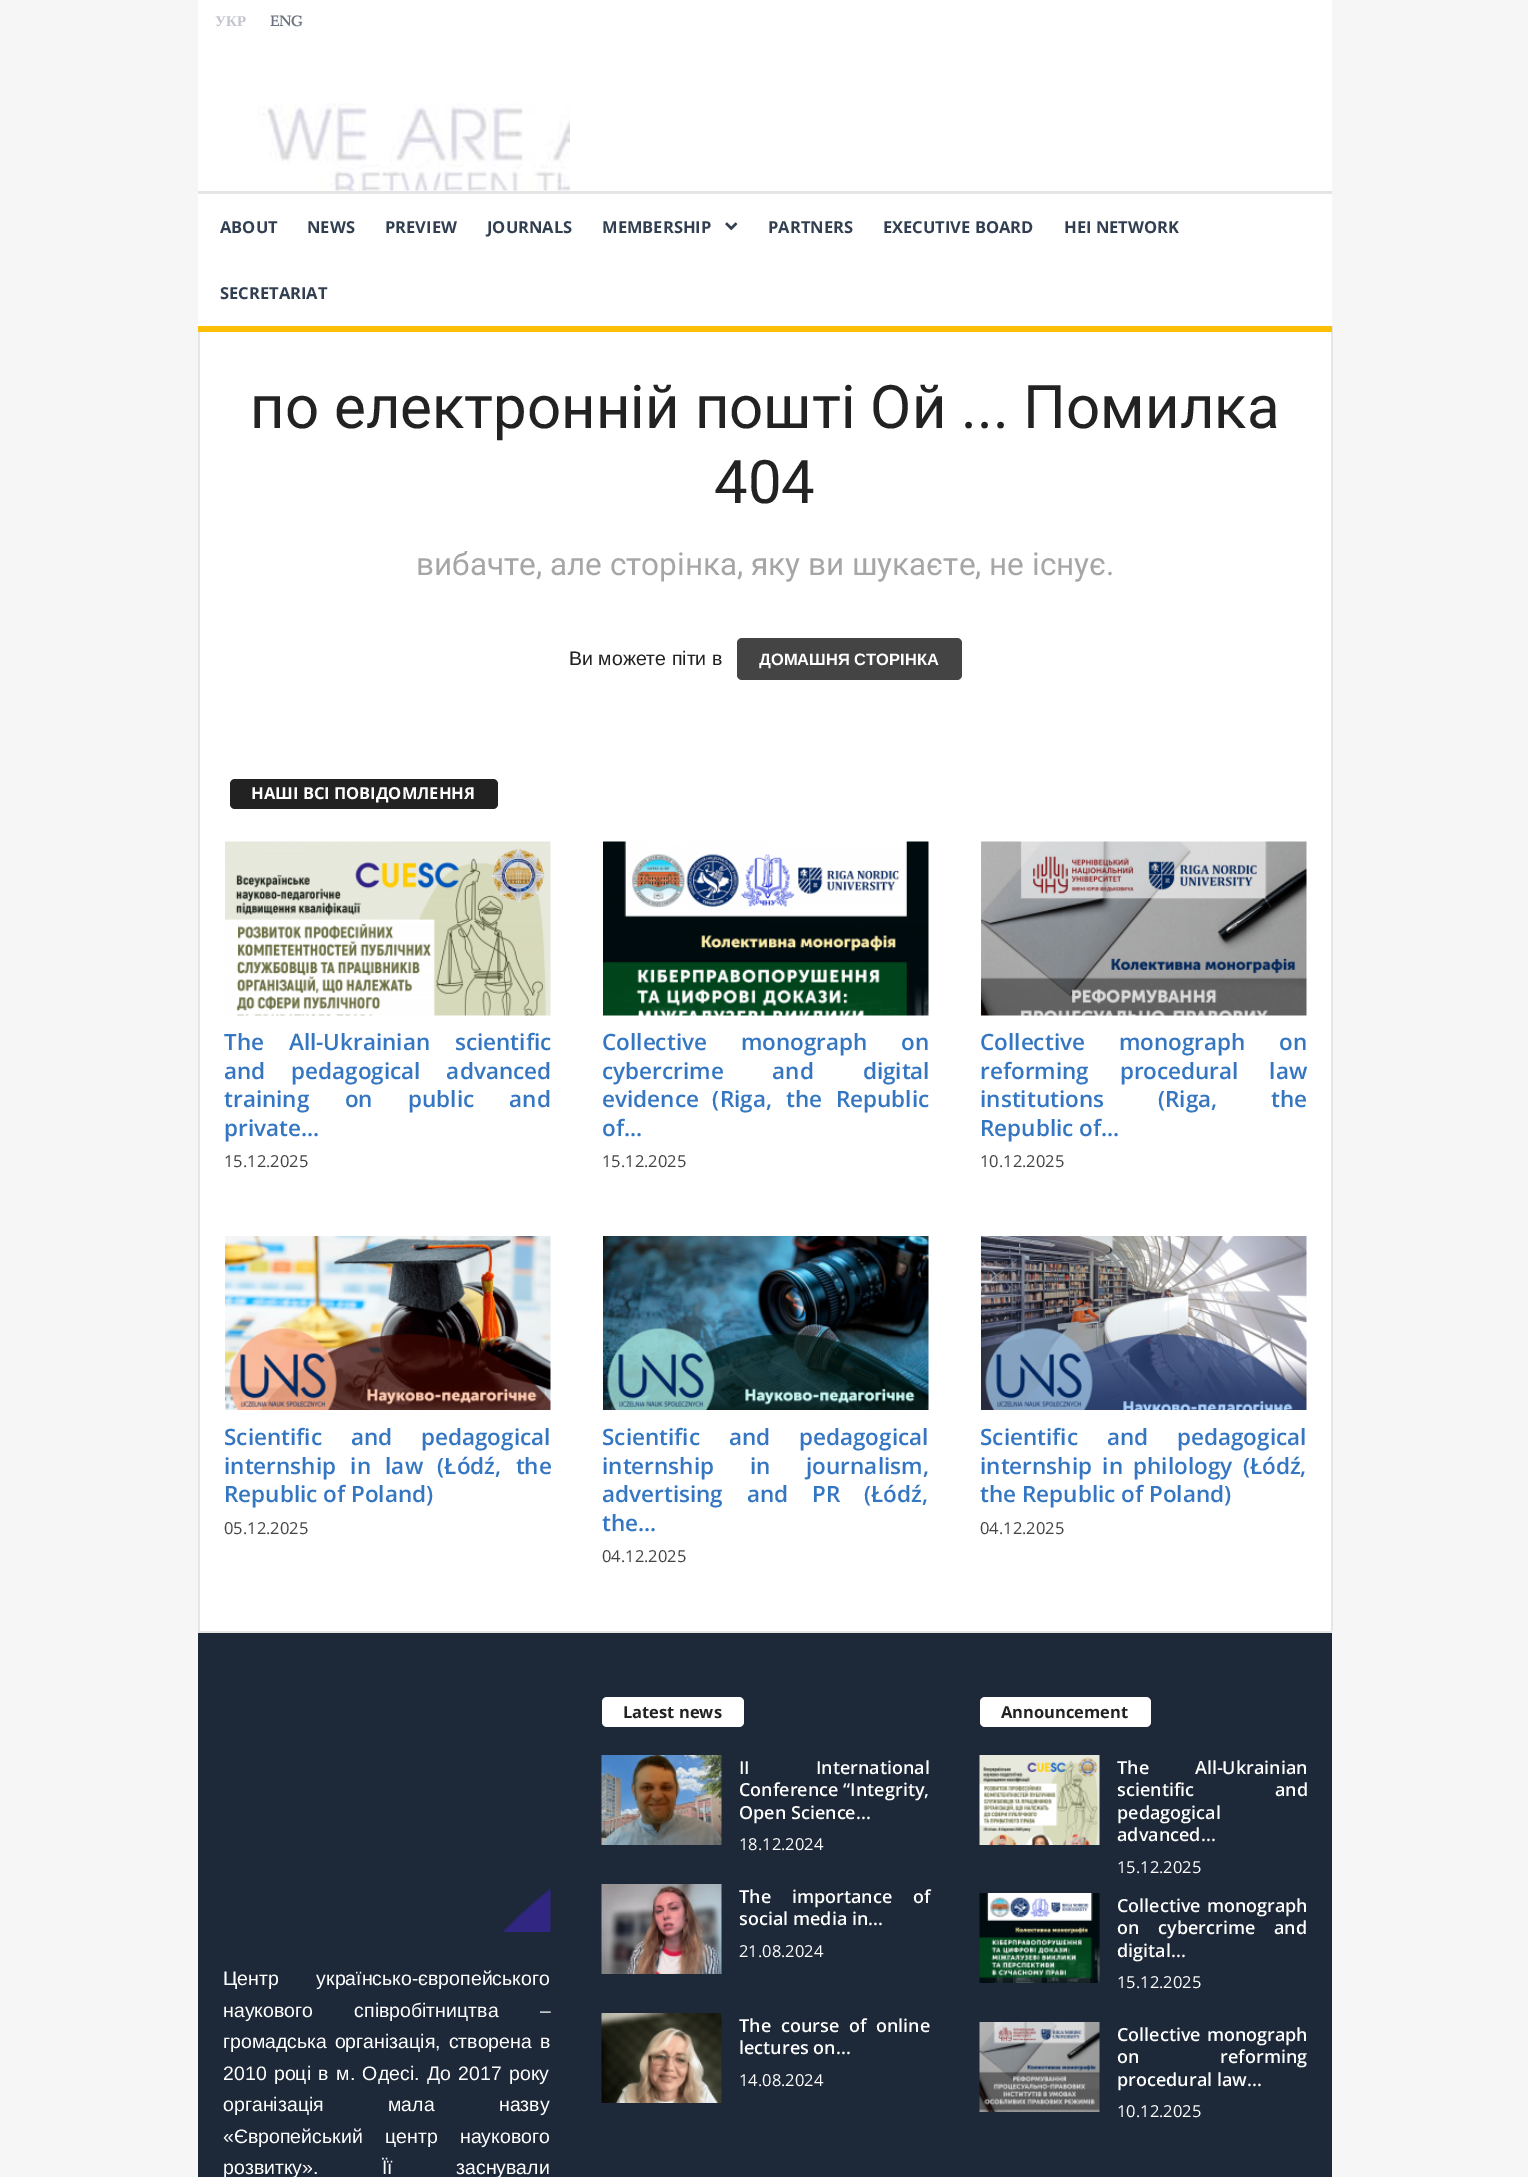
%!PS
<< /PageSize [1528 2177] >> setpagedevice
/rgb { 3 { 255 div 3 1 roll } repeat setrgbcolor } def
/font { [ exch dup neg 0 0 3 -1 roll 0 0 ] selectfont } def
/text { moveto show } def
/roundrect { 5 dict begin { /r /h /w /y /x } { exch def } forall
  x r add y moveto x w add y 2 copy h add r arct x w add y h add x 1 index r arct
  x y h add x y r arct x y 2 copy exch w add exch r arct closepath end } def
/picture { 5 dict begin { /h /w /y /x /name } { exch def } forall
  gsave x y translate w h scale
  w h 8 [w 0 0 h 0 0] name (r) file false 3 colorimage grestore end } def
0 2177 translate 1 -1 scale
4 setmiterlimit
246 246 246 rgb
0 0 1528 2177 rectfill
255 255 255 rgb
198 0 1134 191 rectfill
(img_01.rgb) 258 103 312 88 picture
198 194 1134 132 rectfill
230 230 230 rgb
198 326 2 1305 rectfill
1331 326 2 1305 rectfill
252 191 5 rgb
198 326 1134 6 rectfill
229 229 229 rgb
198 191 1134 3 rectfill
(img_02.rgb) 725 222 13 9 picture
255 255 255 rgb
200 332 1131 1299 rectfill
230 230 230 rgb
198 1631 1134 2 rectfill
68 68 68 rgb
737 638 225 42 5 roundrect fill
34 34 34 rgb
230 779 268 30 5 roundrect fill
(img_03.rgb) 225 841 326 175 picture
(img_04.rgb) 603 841 326 175 picture
(img_05.rgb) 981 841 326 175 picture
(img_06.rgb) 225 1236 326 174 picture
(img_07.rgb) 603 1236 326 174 picture
(img_08.rgb) 981 1236 326 174 picture
29 40 56 rgb
198 1633 1134 544 rectfill
(img_09.rgb) 502 1888 49 44 picture
255 255 255 rgb
602 1697 142 30 5 roundrect fill
(img_10.rgb) 601 1755 121 90 picture
(img_11.rgb) 601 1884 121 90 picture
(img_12.rgb) 601 2013 121 90 picture
980 1697 171 30 5 roundrect fill
(img_13.rgb) 979 1755 121 90 picture
(img_14.rgb) 979 1893 121 90 picture
(img_15.rgb) 979 2022 121 90 picture
/LiberationSerif-Bold 15 font
195 197 205 rgb
(УКР) 215 26 text
/FanwoodText-Bold 15 font
109 116 128 rgb
(ENG) 270 26 text
/OpenSans-Bold 16.5 font
50 63 81 rgb
(ABOUT) 220 233 text
(NEWS) 307 233 text
(PREVIEW) 385 233 text
(JOURNALS) 487 233 text
(MEMBERSHIP) 602 233 text
(PARTNERS) 768 233 text
(EXECUTIVE BOARD) 883 233 text
(HEI NETWORK) 1064 233 text
(SECRETARIAT) 220 299 text
/Roboto-Regular 60 font
34 34 34 rgb
(по електронній пошті Ой ... Помилка) 250 428 text
(404) 714 503 text
/Roboto-Regular 31.5 font
166 166 166 rgb
(вибачте, але сторінка, яку ви шукаєте, не існує.) 416 575 text
/LiberationSans-Regular 19.5 font
34 34 34 rgb
(Ви можете піти в) 569 665 text
/LiberationSans-Bold 16.5 font
255 255 255 rgb
(ДОМАШНЯ СТОРІНКА) 759 665 text
/OpenSans-Bold 16.5 font
(НАШІ ВСІ ПОВІДОМЛЕННЯ) 251 799 text
/OpenSans-SemiBold 22.5 font
52 118 193 rgb
224 1050 moveto 19 0 32 (The All-Ukrainian scientific) widthshow
224 1079 moveto 20 0 32 (and pedagogical advanced) widthshow
224 1107 moveto 29.5 0 32 (training on public and) widthshow
(private...) 224 1136 text
/OpenSans-Regular 16.5 font
68 68 68 rgb
(15.12.2025) 224 1167 text
/OpenSans-SemiBold 22.5 font
52 118 193 rgb
602 1050 moveto 28 0 32 (Collective monograph on) widthshow
602 1079 moveto 43 0 32 (cybercrime and digital) widthshow
602 1107 moveto 8 0 32 (evidence \(Riga, the Republic) widthshow
(of...) 602 1136 text
/OpenSans-Regular 16.5 font
68 68 68 rgb
(15.12.2025) 602 1167 text
/OpenSans-SemiBold 22.5 font
52 118 193 rgb
980 1050 moveto 28 0 32 (Collective monograph on) widthshow
980 1079 moveto 25 0 32 (reforming procedural law) widthshow
980 1107 moveto 48 0 32 (institutions \(Riga, the) widthshow
(Republic of...) 980 1136 text
/OpenSans-Regular 16.5 font
68 68 68 rgb
(10.12.2025) 980 1167 text
/OpenSans-SemiBold 22.5 font
52 118 193 rgb
224 1445 moveto 23 0 32 (Scientific and pedagogical) widthshow
224 1474 moveto 8.5 0 32 (internship in law \(Łódź, the) widthshow
(Republic of Poland\)) 224 1502 text
/OpenSans-Regular 16.5 font
68 68 68 rgb
(05.12.2025) 224 1534 text
/OpenSans-SemiBold 22.5 font
52 118 193 rgb
602 1445 moveto 23 0 32 (Scientific and pedagogical) widthshow
602 1474 moveto 30 0 32 (internship in journalism,) widthshow
602 1502 moveto 18 0 32 (advertising and PR \(Łódź,) widthshow
(the...) 602 1531 text
/OpenSans-Regular 16.5 font
68 68 68 rgb
(04.12.2025) 602 1562 text
/OpenSans-SemiBold 22.5 font
52 118 193 rgb
980 1445 moveto 23 0 32 (Scientific and pedagogical) widthshow
980 1474 moveto 4.5 0 32 (internship in philology \(Łódź,) widthshow
(the Republic of Poland\)) 980 1502 text
/OpenSans-Regular 16.5 font
68 68 68 rgb
(04.12.2025) 980 1534 text
/LiberationSans-Regular 19.5 font
255 255 255 rgb
223 1985 moveto 32 0 32 (Центр українсько-європейського) widthshow
223 2017 moveto 36 0 32 (наукового співробітництва –) widthshow
223 2048 moveto 2.5 0 32 (громадська організація, створена в) widthshow
223 2080 moveto 2 0 32 (2010 році в м. Одесі. До 2017 року) widthshow
223 2111 moveto 59 0 32 (організація мала назву) widthshow
223 2143 moveto 17 0 32 («Європейський центр наукового) widthshow
223 2174 moveto 58 0 32 (розвитку». Її заснували) widthshow
/OpenSans-Bold 16.5 font
34 34 34 rgb
(Latest news) 623 1718 text
/OpenSans-SemiBold 18 font
255 255 255 rgb
739 1774 moveto 61 0 32 (II International) widthshow
(Conference “Integrity,) 739 1796 text
(Open Science...) 739 1819 text
/OpenSans-Regular 16.5 font
(18.12.2024) 739 1850 text
/OpenSans-SemiBold 18 font
739 1903 moveto 16 0 32 (The importance of) widthshow
(social media in...) 739 1925 text
/OpenSans-Regular 16.5 font
(21.08.2024) 739 1957 text
/OpenSans-SemiBold 18 font
739 2032 moveto 5 0 32 (The course of online) widthshow
(lectures on...) 739 2054 text
/OpenSans-Regular 16.5 font
(14.08.2024) 739 2086 text
/OpenSans-Bold 16.5 font
34 34 34 rgb
(Announcement) 1001 1718 text
/OpenSans-SemiBold 18 font
255 255 255 rgb
1117 1774 moveto 41 0 32 (The All-Ukrainian) widthshow
1117 1796 moveto 76 0 32 (scientific and) widthshow
(pedagogical) 1117 1819 text
(advanced...) 1117 1841 text
/OpenSans-Regular 16.5 font
(15.12.2025) 1117 1873 text
/OpenSans-SemiBold 18 font
1117 1912 moveto 1 0 32 (Collective monograph) widthshow
1117 1934 moveto 14 0 32 (on cybercrime and) widthshow
(digital...) 1117 1957 text
/OpenSans-Regular 16.5 font
(15.12.2025) 1117 1988 text
/OpenSans-SemiBold 18 font
1117 2041 moveto 1 0 32 (Collective monograph) widthshow
1117 2063 moveto 76 0 32 (on reforming) widthshow
(procedural law...) 1117 2086 text
/OpenSans-Regular 16.5 font
(10.12.2025) 1117 2117 text
showpage
